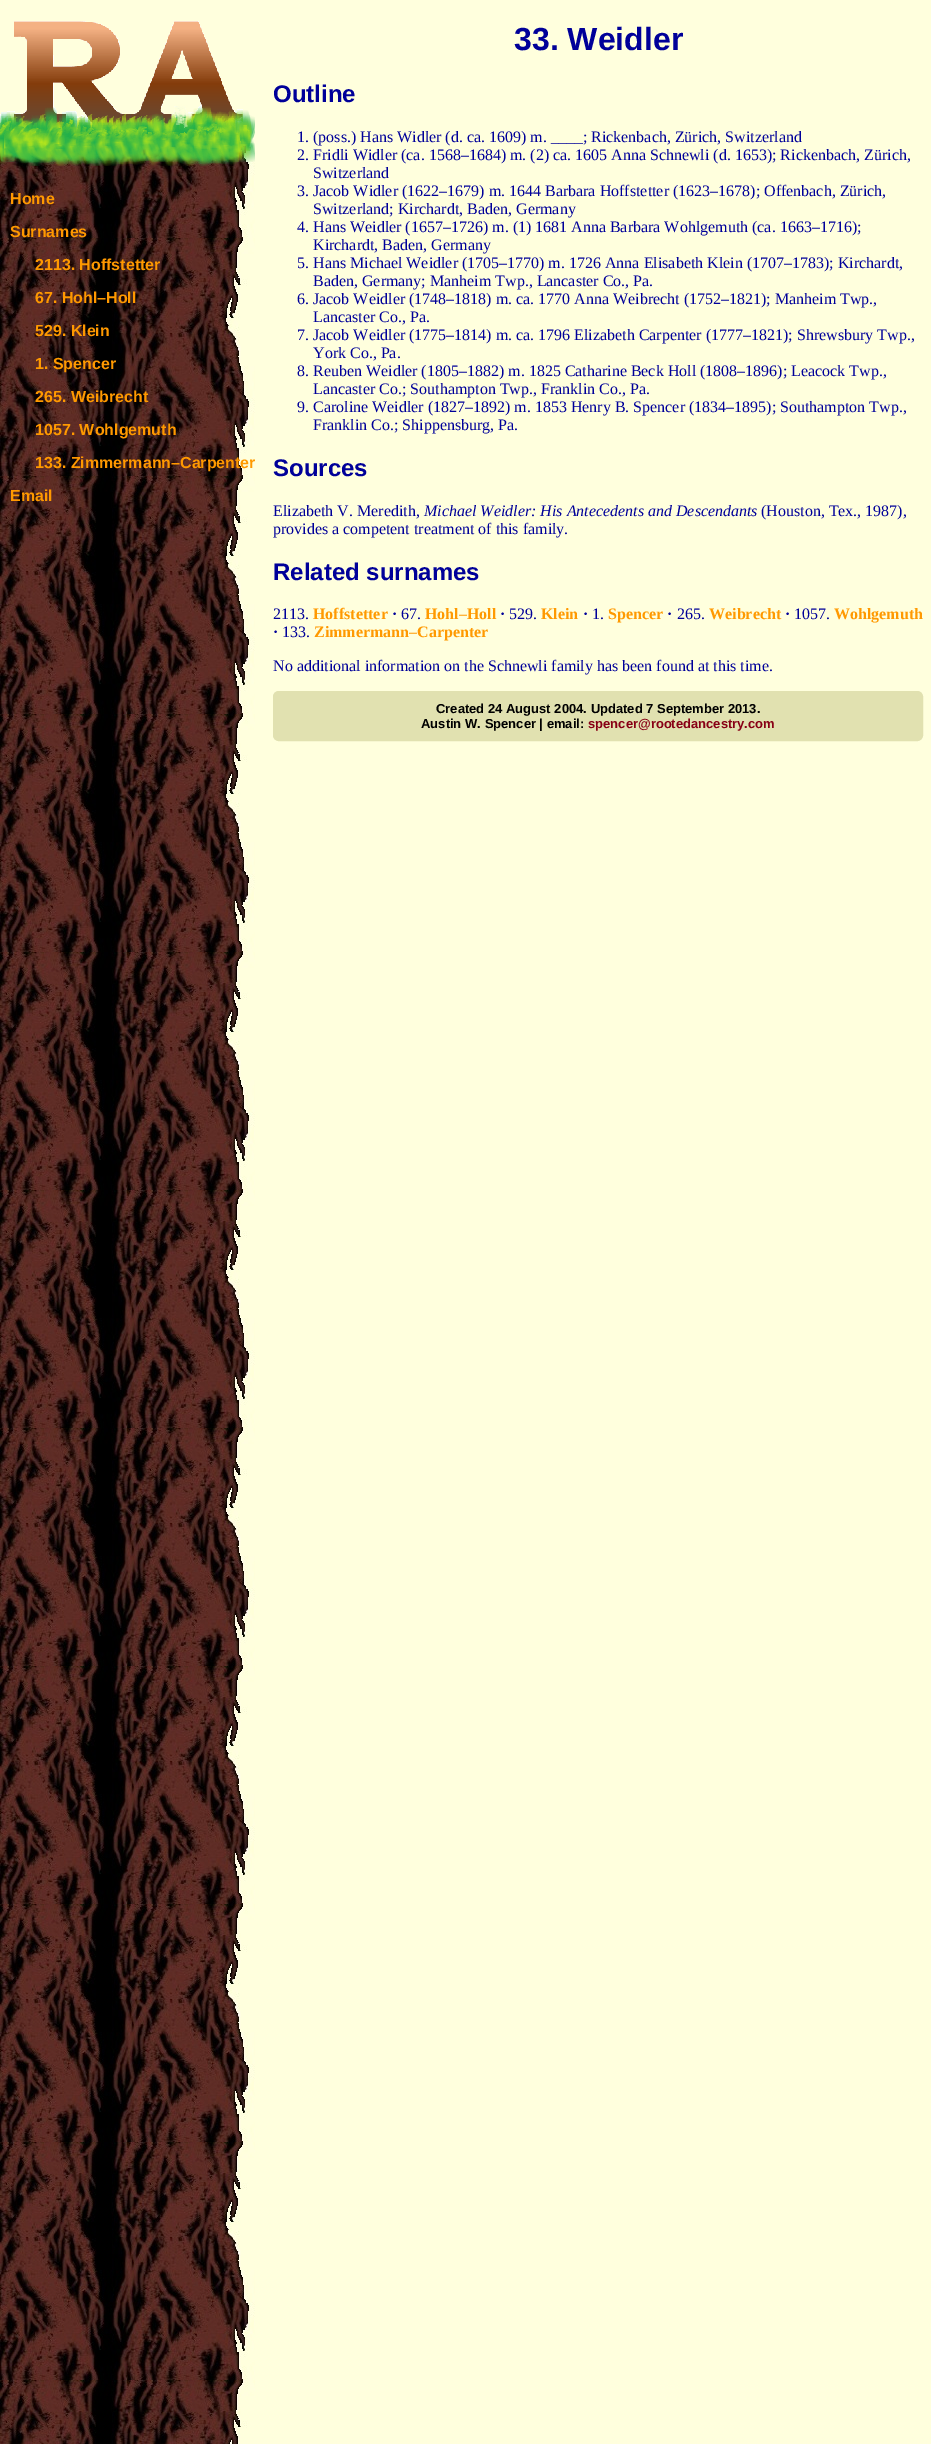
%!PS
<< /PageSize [931 2444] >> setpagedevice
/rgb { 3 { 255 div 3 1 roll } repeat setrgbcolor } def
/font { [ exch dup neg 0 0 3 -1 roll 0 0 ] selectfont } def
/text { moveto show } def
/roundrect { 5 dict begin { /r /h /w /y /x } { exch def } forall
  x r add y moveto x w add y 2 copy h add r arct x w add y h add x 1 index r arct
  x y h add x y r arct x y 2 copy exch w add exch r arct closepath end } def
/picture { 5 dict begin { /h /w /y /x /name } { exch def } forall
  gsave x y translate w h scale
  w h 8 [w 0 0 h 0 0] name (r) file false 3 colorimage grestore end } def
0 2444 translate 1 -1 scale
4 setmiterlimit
255 255 221 rgb
0 0 931 2444 rectfill
(img_01.rgb) 0 166 255 2278 picture
(img_02.rgb) 0 0 255 166 picture
225 225 176 rgb
278 696 640 40 1 roundrect gsave fill grestore
10 setlinewidth
stroke
/LiberationSans-Bold 16 font
255 153 0 rgb
(Home) 10 204 text
(Surnames) 10 237 text
(2113. Hoffstetter) 35 270 text
(67. Hohl–Holl) 35 303 text
(529. Klein) 35 336 text
(1. Spencer) 35 369 text
(265. Weibrecht) 35 402 text
(1057. Wohlgemuth) 35 435 text
(133. Zimmermann–Carpenter) 35 468 text
(Email) 10 501 text
/LiberationSans-Bold 32 font
0 0 153 rgb
(33. Weidler) 514 50 text
/LiberationSans-Bold 24 font
(Outline) 273 102 text
/LiberationSerif-Regular 16 font
(1. \(poss.\) Hans Widler \(d. ca. 1609\) m. ____; Rickenbach, Zürich, Switzerland) 297 142 text
(2. Fridli Widler \(ca. 1568–1684\) m. \(2\) ca. 1605 Anna Schnewli \(d. 1653\); Rickenbach, Zürich,) 297 160 text
(Switzerland) 313 178 text
(3. Jacob Widler \(1622–1679\) m. 1644 Barbara Hoffstetter \(1623–1678\); Offenbach, Zürich,) 297 196 text
(Switzerland; Kirchardt, Baden, Germany) 313 214 text
(4. Hans Weidler \(1657–1726\) m. \(1\) 1681 Anna Barbara Wohlgemuth \(ca. 1663–1716\);) 297 232 text
(Kirchardt, Baden, Germany) 313 250 text
(5. Hans Michael Weidler \(1705–1770\) m. 1726 Anna Elisabeth Klein \(1707–1783\); Kirchardt,) 297 268 text
(Baden, Germany; Manheim Twp., Lancaster Co., Pa.) 313 286 text
(6. Jacob Weidler \(1748–1818\) m. ca. 1770 Anna Weibrecht \(1752–1821\); Manheim Twp.,) 297 304 text
(Lancaster Co., Pa.) 313 322 text
(7. Jacob Weidler \(1775–1814\) m. ca. 1796 Elizabeth Carpenter \(1777–1821\); Shrewsbury Twp.,) 297 340 text
(York Co., Pa.) 313 358 text
(8. Reuben Weidler \(1805–1882\) m. 1825 Catharine Beck Holl \(1808–1896\); Leacock Twp.,) 297 376 text
(Lancaster Co.; Southampton Twp., Franklin Co., Pa.) 313 394 text
(9. Caroline Weidler \(1827–1892\) m. 1853 Henry B. Spencer \(1834–1895\); Southampton Twp.,) 297 412 text
(Franklin Co.; Shippensburg, Pa.) 313 430 text
/LiberationSans-Bold 24 font
(Sources) 273 476 text
/LiberationSerif-Regular 16 font
(Elizabeth V. Meredith,) 273 516 text
/LiberationSerif-Italic 16 font
(Michael Weidler: His Antecedents and Descendants) 424 516 text
/LiberationSerif-Regular 16 font
(\(Houston, Tex., 1987\),) 761 516 text
(provides a competent treatment of this family.) 273 534 text
/LiberationSans-Bold 24 font
(Related surnames) 273 580 text
/LiberationSerif-Regular 16 font
(2113.) 273 619 text
/LiberationSerif-Bold 16 font
255 153 0 rgb
(Hoffstetter) 313 619 text
0 0 153 rgb
(·) 392 619 text
/LiberationSerif-Regular 16 font
(67.) 401 619 text
/LiberationSerif-Bold 16 font
255 153 0 rgb
(Hohl–Holl) 425 619 text
0 0 153 rgb
(·) 500 619 text
/LiberationSerif-Regular 16 font
(529.) 509 619 text
/LiberationSerif-Bold 16 font
255 153 0 rgb
(Klein) 541 619 text
0 0 153 rgb
(·) 583 619 text
/LiberationSerif-Regular 16 font
(1.) 592 619 text
/LiberationSerif-Bold 16 font
255 153 0 rgb
(Spencer) 608 619 text
0 0 153 rgb
(·) 667 619 text
/LiberationSerif-Regular 16 font
(265.) 677 619 text
/LiberationSerif-Bold 16 font
255 153 0 rgb
(Weibrecht) 709 619 text
0 0 153 rgb
(·) 785 619 text
/LiberationSerif-Regular 16 font
(1057.) 794 619 text
/LiberationSerif-Bold 16 font
255 153 0 rgb
(Wohlgemuth) 834 619 text
0 0 153 rgb
(·) 273 637 text
/LiberationSerif-Regular 16 font
(133.) 282 637 text
/LiberationSerif-Bold 16 font
255 153 0 rgb
(Zimmermann–Carpenter) 314 637 text
/LiberationSerif-Regular 16 font
0 0 153 rgb
(No additional information on the Schnewli family has been found at this time.) 273 671 text
/LiberationSans-Bold 13 font
0 0 0 rgb
(Created 24 August 2004. Updated 7 September 2013.) 436 713 text
(Austin W. Spencer | email:) 421 728 text
136 0 21 rgb
(spencer@rootedancestry.com) 588 728 text
showpage
